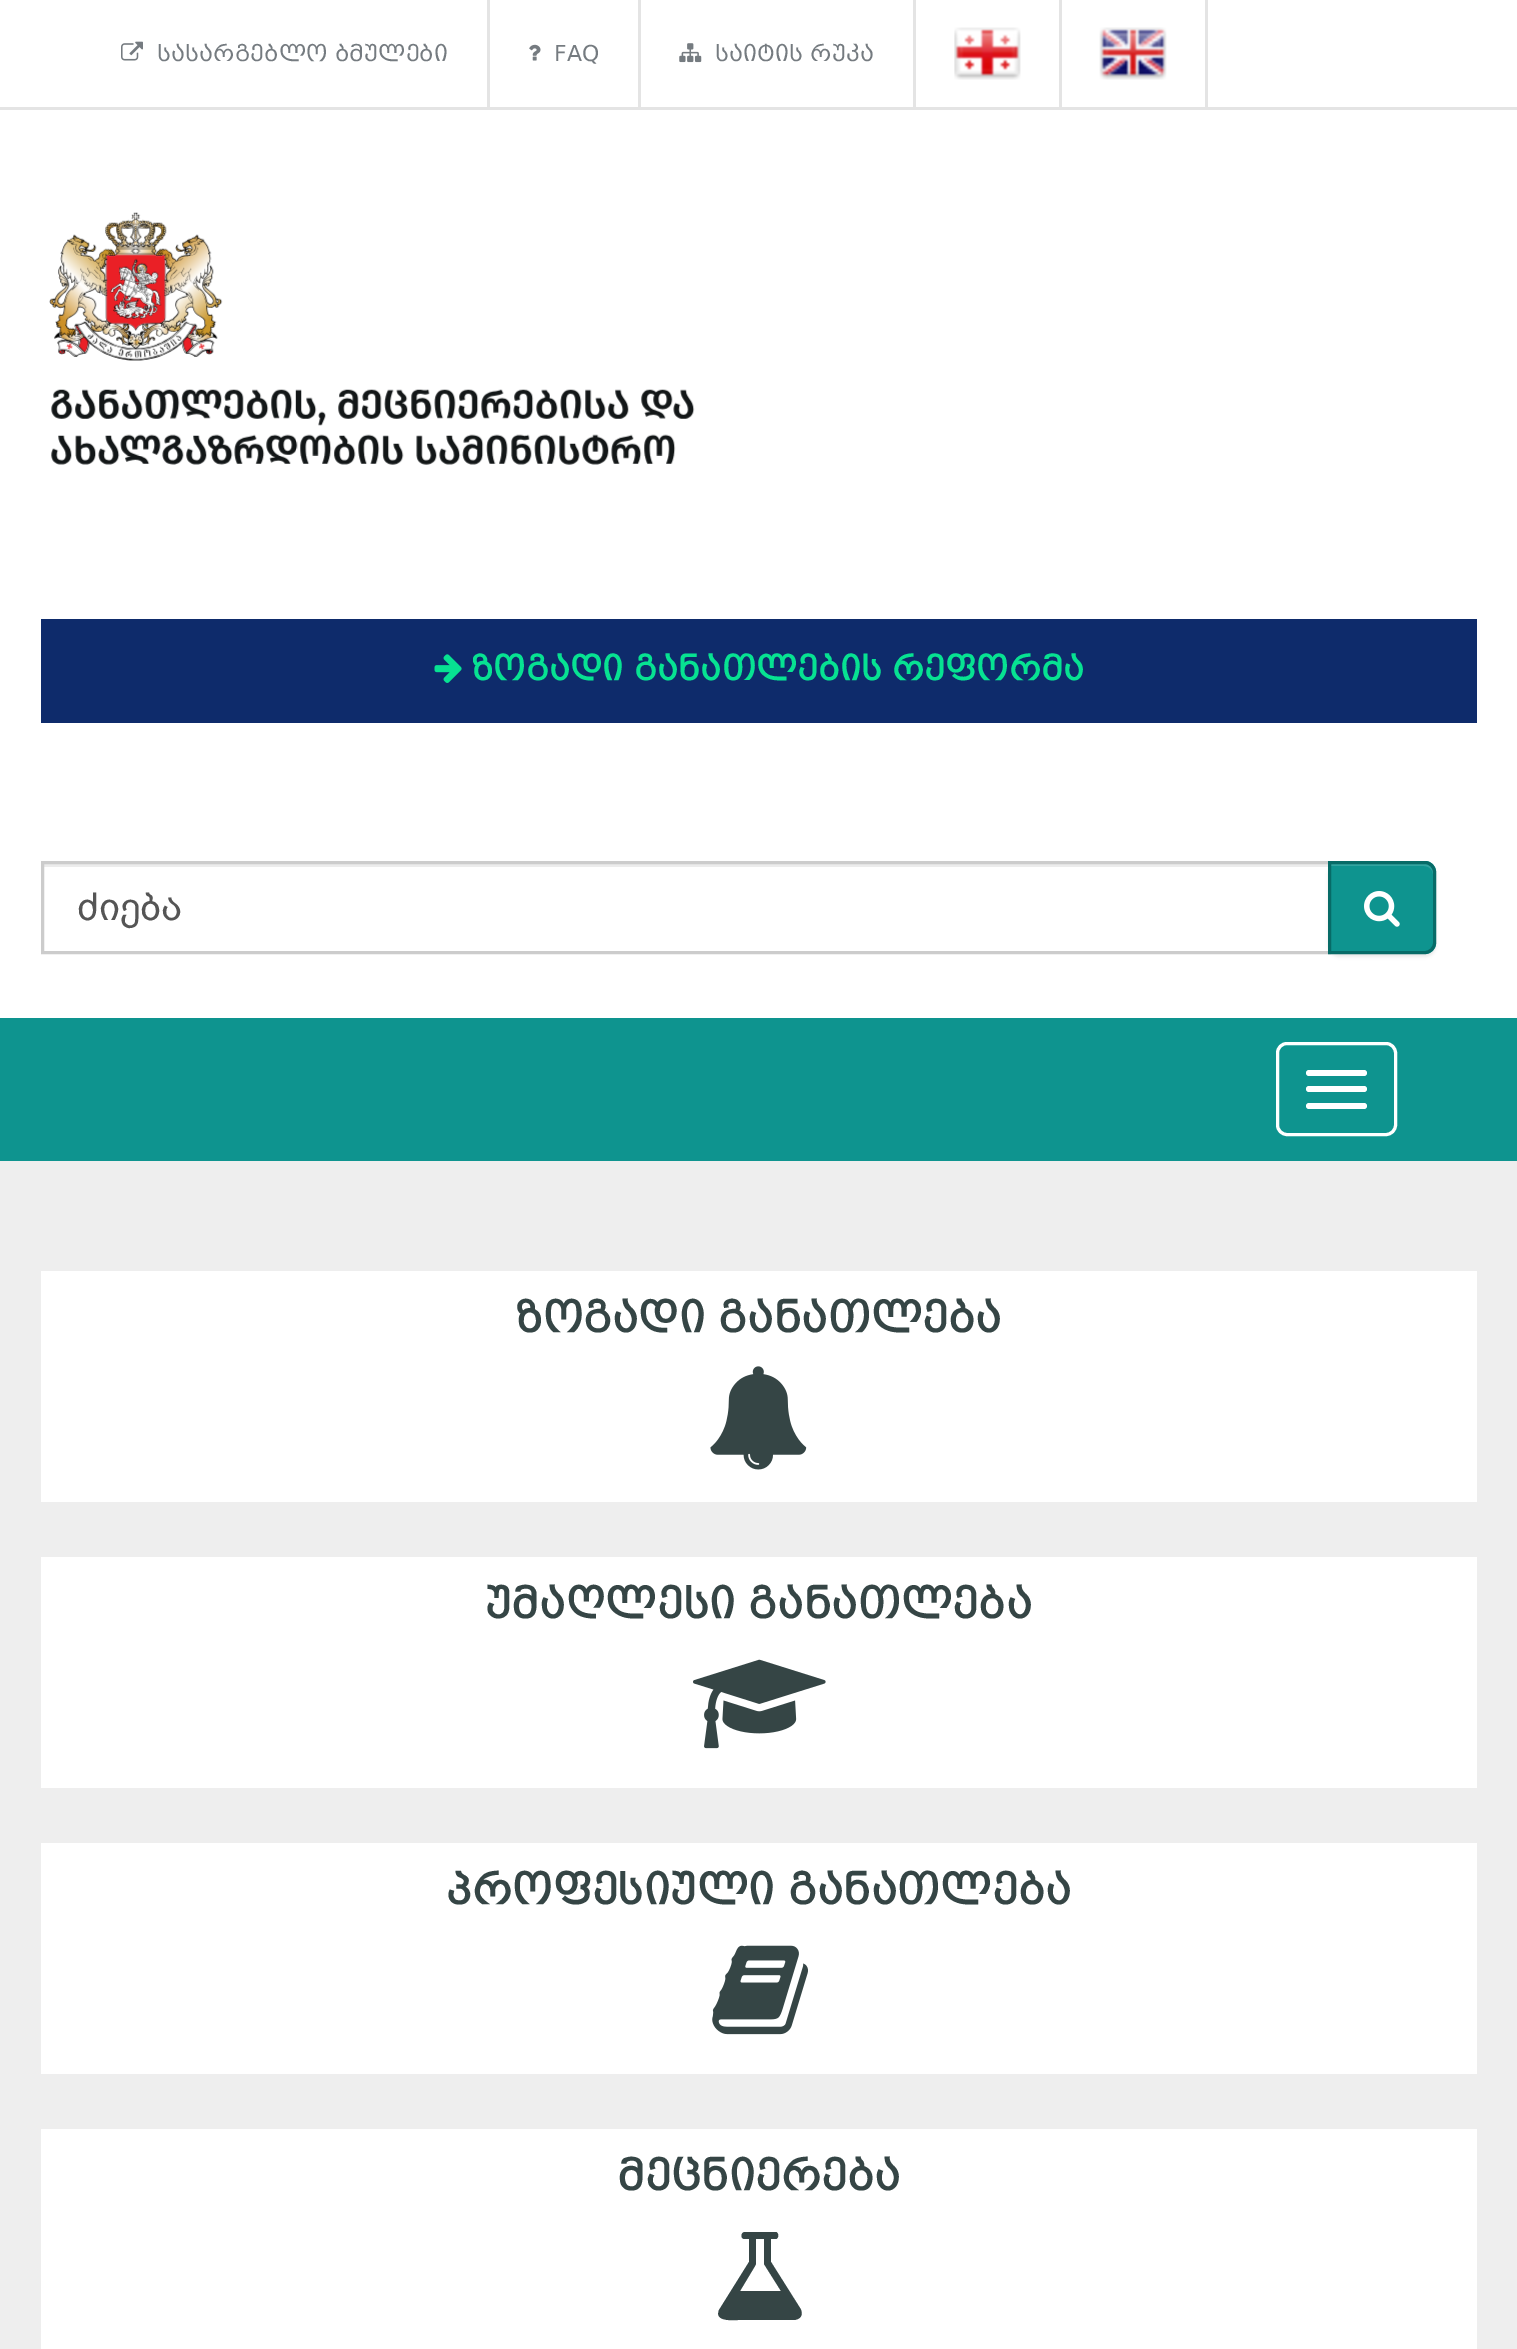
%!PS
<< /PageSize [1517 2349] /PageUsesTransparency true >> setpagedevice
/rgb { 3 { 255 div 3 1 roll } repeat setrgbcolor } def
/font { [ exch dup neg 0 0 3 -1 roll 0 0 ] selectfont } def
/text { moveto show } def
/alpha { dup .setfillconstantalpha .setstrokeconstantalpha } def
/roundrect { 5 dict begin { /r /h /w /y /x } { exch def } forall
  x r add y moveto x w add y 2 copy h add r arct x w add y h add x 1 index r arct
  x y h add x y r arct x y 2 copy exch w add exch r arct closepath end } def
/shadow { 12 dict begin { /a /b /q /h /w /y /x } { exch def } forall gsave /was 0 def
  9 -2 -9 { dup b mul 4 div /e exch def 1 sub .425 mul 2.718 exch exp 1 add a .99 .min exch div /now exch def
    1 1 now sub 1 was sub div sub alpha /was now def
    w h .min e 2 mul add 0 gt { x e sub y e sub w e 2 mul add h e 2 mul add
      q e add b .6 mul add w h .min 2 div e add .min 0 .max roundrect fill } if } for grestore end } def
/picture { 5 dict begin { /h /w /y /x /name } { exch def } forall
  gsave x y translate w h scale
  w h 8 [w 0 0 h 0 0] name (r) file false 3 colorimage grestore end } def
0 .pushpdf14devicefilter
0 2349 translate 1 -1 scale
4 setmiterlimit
238 238 238 rgb
0 0 1517 2349 rectfill
255 255 255 rgb
0 0 1517 1018 rectfill
228 228 228 rgb
0 107 1517 3 rectfill
487 0 3 110 rectfill
(img_01.rgb) 121 41 22 20 picture
638 0 3 110 rectfill
(img_02.rgb) 529 44 12 17 picture
913 0 3 110 rectfill
(img_03.rgb) 679 43 23 20 picture
1059 0 3 110 rectfill
(img_04.rgb) 954 27 67 53 picture
1205 0 3 110 rectfill
(img_05.rgb) 1099 27 68 53 picture
(img_06.rgb) 49 212 646 253 picture
14 43 107 rgb
41 619 1436 104 rectfill
(img_07.rgb) 434 654 28 29 picture
236 236 236 rgb
44 864 1284 3 rectfill
204 204 204 rgb
3 setlinewidth
42.5 862.5 1287 90 rectstroke
0 0 0 rgb
1328 864 108 93 11 1.5 0.07 shadow
14 148 143 rgb
1328 861 moveto 97 0 rlineto 6 0 11 5 11 11 rcurveto 0 71 rlineto 0 6 -5 11 -11 11 rcurveto -97 0 rlineto closepath fill
50 164 160 rgb
1331 866 moveto 93 0 rlineto 5 0 9 4 9 8 rcurveto 0 -2 rlineto 0 -4 -4 -8 -8 -8 rcurveto -94 0 rlineto closepath fill
7 107 103 rgb
1329.5 862.5 moveto 95.5 0 rlineto 5 0 9.5 4.5 9.5 9.5 rcurveto 0 71 rlineto 0 5 -4.5 9.5 -9.5 9.5 rcurveto -95.5 0 rlineto closepath stroke
(img_08.rgb) 1364 891 36 36 picture
14 148 143 rgb
0 1018 1517 143 rectfill
255 255 255 rgb
1277.5 1043.5 118 91 9.5 roundrect stroke
1306 1070 61 6 3 roundrect fill
1306 1086 61 6 3 roundrect fill
1306 1103 61 6 3 roundrect fill
41 1271 1436 231 rectfill
(img_09.rgb) 710 1366 97 104 picture
41 1557 1436 231 rectfill
(img_10.rgb) 693 1659 133 90 picture
41 1843 1436 231 rectfill
(img_11.rgb) 712 1945 96 90 picture
41 2129 1436 220 rectfill
53 69 69 rgb
800 2308 moveto 4 6 1 12 -7 12 rcurveto -55 0 rlineto -5 0 -24 2 -19 -10 rcurveto 30 -48 rlineto 0 -23 rlineto -5 0 rlineto -4 -1 -3 -7 1 -7 rcurveto 31 0 rlineto 3 1 3 6 0 7 rcurveto -5 0 rlineto 0 23 rlineto closepath 755 2266 moveto -15 25 rlineto 41 0 rlineto -17 -27 rlineto 0 -25 rlineto -8 0 rlineto 0 25 rlineto closepath fill
/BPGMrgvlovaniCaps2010-Regular 22 font
117 123 128 rgb
(სასარგებლო ბმულები) 157 61 text
(FAQ) 554 61 text
(საიტის რუკა) 715 61 text
/BPGMrgvlovaniCaps2010-Bold 33 font
7 226 146 rgb
(ზოგადი განათლების რეფორმა) 472 680 text
/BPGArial-Regular 38.5 font
85 85 85 rgb
(ძიება) 77 920 text
/BPGMrgvlovaniCaps2010-Bold 41.25 font
53 69 69 rgb
(ზოგადი განათლება) 516 1332 text
(უმაღლესი განათლება) 485 1618 text
(პროფესიული განათლება) 446 1904 text
(მეცნიერება) 617 2190 text
.poppdf14devicefilter showpage
